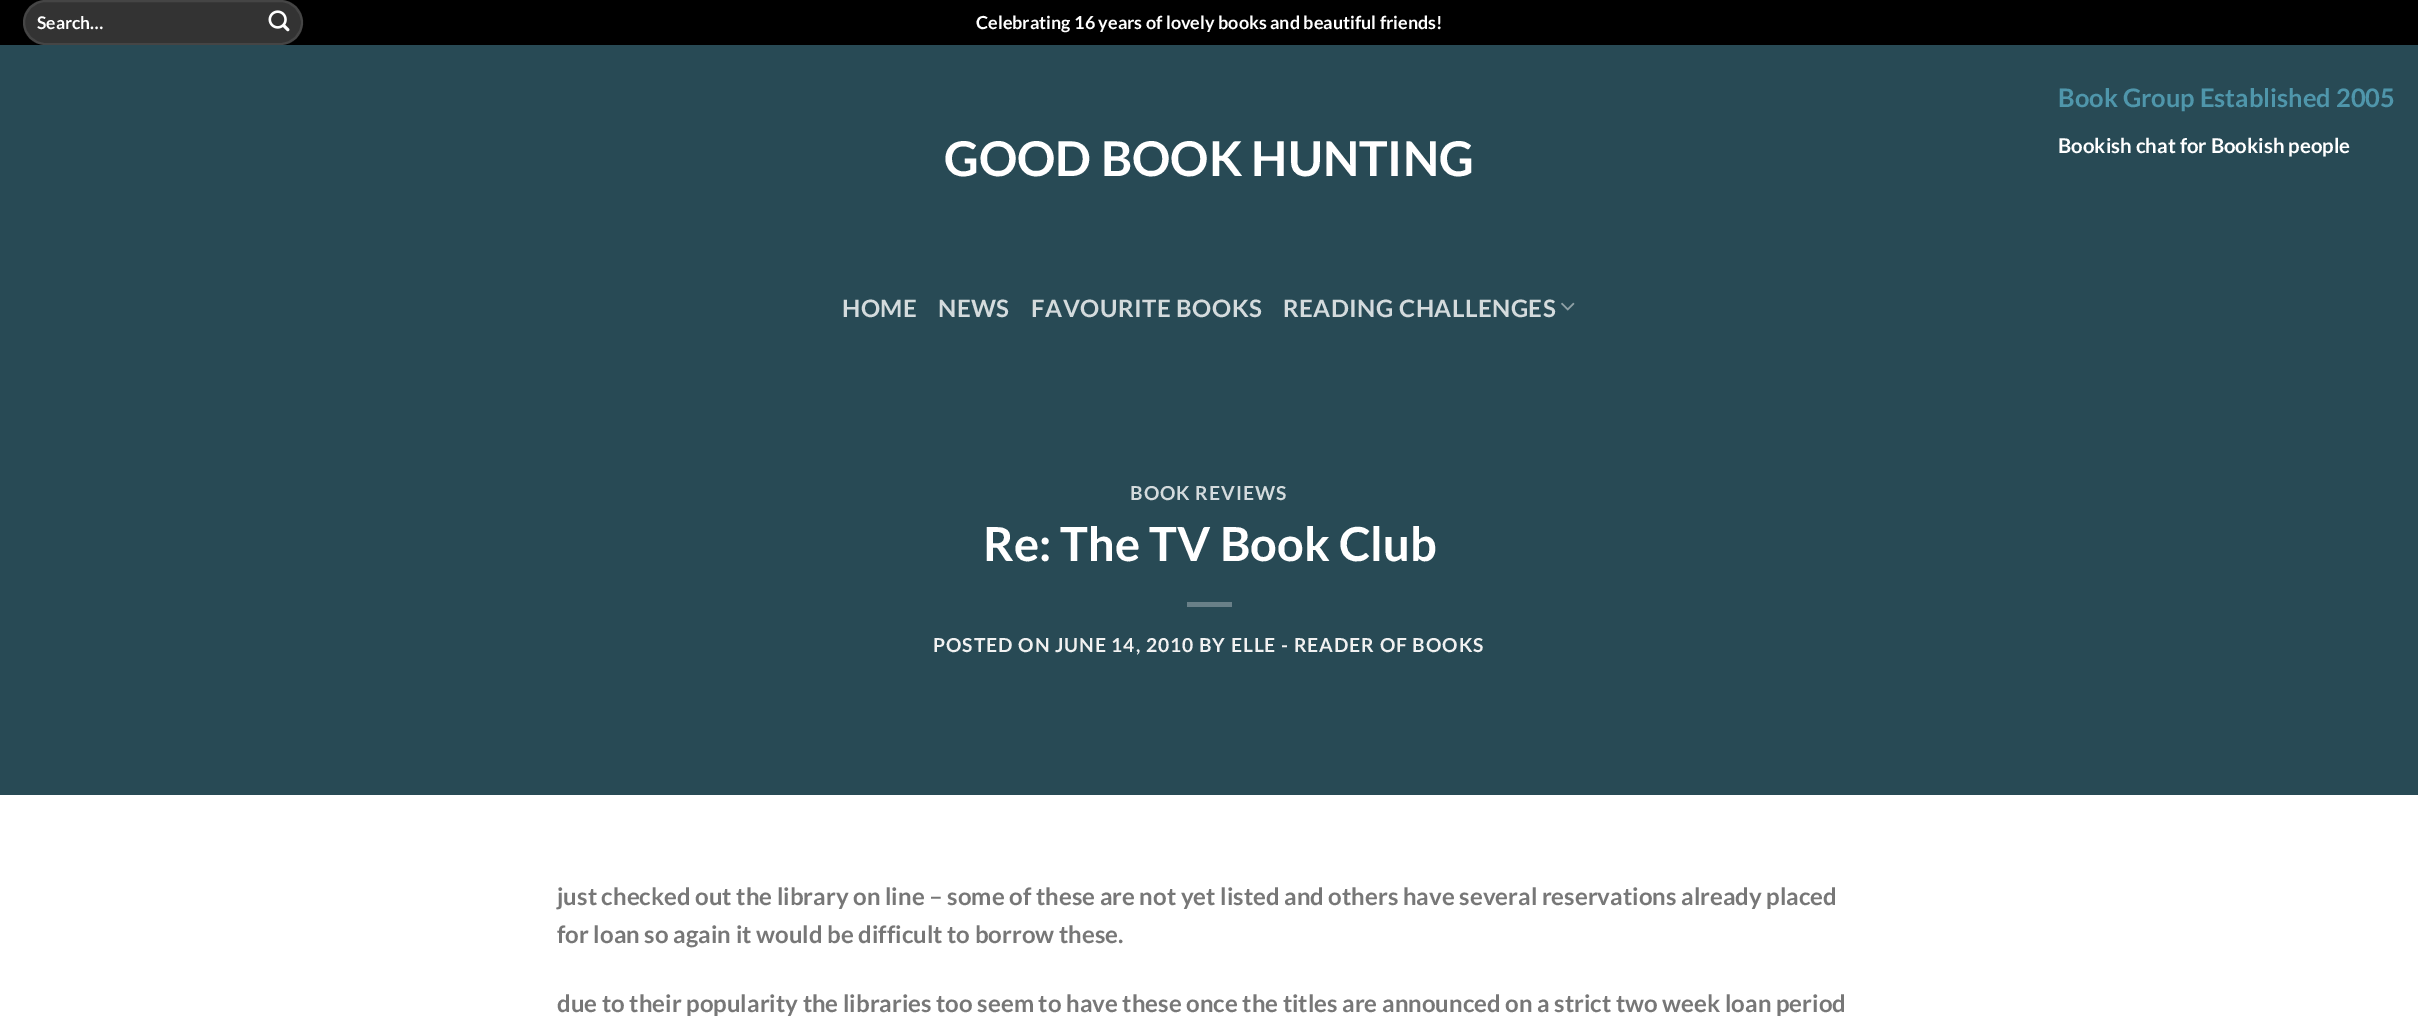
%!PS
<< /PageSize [2418 1032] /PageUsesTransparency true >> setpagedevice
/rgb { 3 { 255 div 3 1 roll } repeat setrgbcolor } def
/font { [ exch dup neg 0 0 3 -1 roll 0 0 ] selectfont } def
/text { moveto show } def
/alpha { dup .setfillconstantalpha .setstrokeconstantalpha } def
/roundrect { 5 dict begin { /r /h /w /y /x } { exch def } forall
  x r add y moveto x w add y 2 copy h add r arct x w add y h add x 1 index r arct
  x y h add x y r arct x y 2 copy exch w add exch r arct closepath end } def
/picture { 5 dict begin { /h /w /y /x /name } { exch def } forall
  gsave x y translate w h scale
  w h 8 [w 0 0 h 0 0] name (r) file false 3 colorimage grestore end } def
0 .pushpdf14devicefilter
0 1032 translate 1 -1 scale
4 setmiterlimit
255 255 255 rgb
0 0 2418 1032 rectfill
0 0 0 rgb
0 0 2418 45 rectfill
51 51 51 rgb
23 0 280 45 22.5 roundrect fill
0.09 alpha
255 255 255 rgb
2 setlinewidth
24 1 278 43 21.5 roundrect stroke
1 alpha
(img_01.rgb) 268 10 22 22 picture
40 74 85 rgb
0 45 2418 750 rectfill
(img_02.rgb) 1561 302 14 9 picture
105 128 136 rgb
1187 602 45 5 rectfill
/Lato-Bold 17.5 font
255 255 255 rgb
(Search…) 37 29 text
/Lato-Bold 18 font
(Celebrating 16 years of lovely books and beautiful friends!) 976 29 text
/Lato-Bold 48 font
(GOOD BOOK HUNTING) 944 176 text
/Lato-Bold 25.5 font
79 150 171 rgb
(Book Group Established 2005) 2058 107 text
/Lato-Bold 20.4 font
255 255 255 rgb
(Bookish chat for Bookish people) 2058 153 text
/Lato-Bold 24 font
212 219 221 rgb
842 317 moveto 0.5 0 (HOME) ashow
938 317 moveto 0.5 0 (NEWS) ashow
1031 317 moveto 0.5 0 (FAVOURITE BOOKS) ashow
1283 317 moveto 0.5 0 (READING CHALLENGES) ashow
/Lato-Bold 19.3 font
1130 500 moveto 0.95 0 (BOOK REVIEWS) ashow
/Lato-Bold 47 font
255 255 255 rgb
(Re: The TV Book Club) 983 561 text
/Lato-Bold 19.3 font
241 241 241 rgb
933 652 moveto 0.95 0 (POSTED ON JUNE 14, 2010 BY ELLE - READER OF BOOKS) ashow
/Lato-Bold 24 font
119 119 119 rgb
(just checked out the library on line – some of these are not yet listed and others have several reservations already placed) 557 905 text
(for loan so again it would be difficult to borrow these.) 557 943 text
(due to their popularity the libraries too seem to have these once the titles are announced on a strict two week loan period) 557 1012 text
.poppdf14devicefilter showpage
